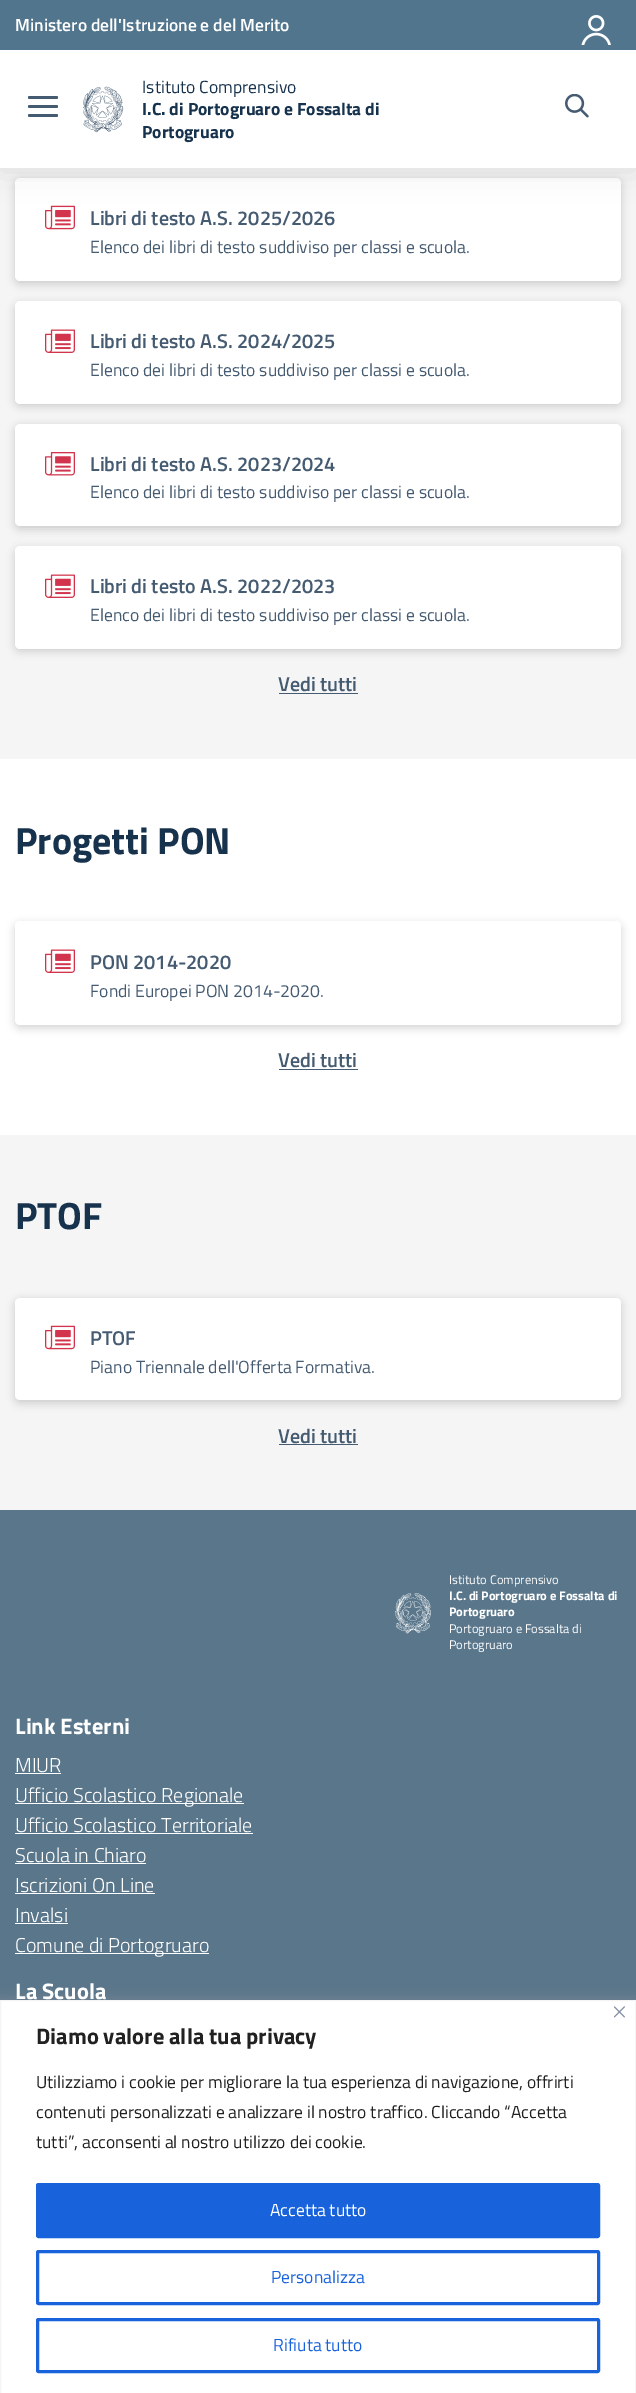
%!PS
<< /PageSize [636 2393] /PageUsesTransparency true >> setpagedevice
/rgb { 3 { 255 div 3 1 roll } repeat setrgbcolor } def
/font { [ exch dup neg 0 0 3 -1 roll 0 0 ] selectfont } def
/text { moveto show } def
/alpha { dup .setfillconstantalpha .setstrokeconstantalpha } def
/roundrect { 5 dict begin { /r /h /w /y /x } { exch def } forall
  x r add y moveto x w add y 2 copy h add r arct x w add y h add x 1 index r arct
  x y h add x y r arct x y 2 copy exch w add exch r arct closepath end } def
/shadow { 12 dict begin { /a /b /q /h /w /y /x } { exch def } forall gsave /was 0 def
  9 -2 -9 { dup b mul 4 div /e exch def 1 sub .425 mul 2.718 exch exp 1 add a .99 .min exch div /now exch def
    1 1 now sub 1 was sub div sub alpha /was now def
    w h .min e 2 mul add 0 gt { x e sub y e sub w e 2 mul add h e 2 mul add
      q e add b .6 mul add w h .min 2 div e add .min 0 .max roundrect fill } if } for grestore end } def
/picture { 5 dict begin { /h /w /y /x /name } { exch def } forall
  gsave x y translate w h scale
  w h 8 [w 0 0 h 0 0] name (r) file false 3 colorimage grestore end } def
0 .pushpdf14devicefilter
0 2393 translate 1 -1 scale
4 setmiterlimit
255 255 255 rgb
0 0 636 2393 rectfill
245 245 245 rgb
0 168 636 591 rectfill
0 0 0 rgb
15 180 606 104 5 4.5 0.17 shadow
255 255 255 rgb
15 178 606 103 5 roundrect fill
(img_04.rgb) 45 205 30 25 picture
0 0 0 rgb
0 3 636 167 0 15.5 0.1 shadow
255 255 255 rgb
0 50 636 118 rectfill
81 117 141 rgb
0 0 636 50 rectfill
(img_01.rgb) 581 15 30 30 picture
69 91 113 rgb
28 105 30 3 1.5 roundrect fill
28 96 30 3 1.5 roundrect fill
28 114 30 3 1.5 roundrect fill
(img_02.rgb) 83 86 41 47 picture
(img_03.rgb) 565 94 24 24 picture
0 0 0 rgb
15 304 606 102 5 4.5 0.17 shadow
255 255 255 rgb
15 301 606 103 5 roundrect fill
(img_05.rgb) 45 329 30 24 picture
0 0 0 rgb
15 426 606 103 5 4.5 0.17 shadow
255 255 255 rgb
15 424 606 102 5 roundrect fill
(img_06.rgb) 45 452 30 24 picture
0 0 0 rgb
15 549 606 102 5 4.5 0.17 shadow
255 255 255 rgb
15 546 606 103 5 roundrect fill
(img_05.rgb) 45 574 30 24 picture
69 91 113 rgb
279 693 79 1 rectfill
0 0 0 rgb
15 924 606 104 5 4.5 0.17 shadow
255 255 255 rgb
15 921 606 104 5 roundrect fill
(img_05.rgb) 45 949 30 24 picture
69 91 113 rgb
279 1069 79 1 rectfill
245 245 245 rgb
0 1135 636 375 rectfill
0 0 0 rgb
15 1300 606 103 5 4.5 0.17 shadow
255 255 255 rgb
15 1298 606 102 5 roundrect fill
(img_04.rgb) 45 1325 30 25 picture
69 91 113 rgb
279 1444 79 1 rectfill
90 118 138 rgb
0 1510 636 490 rectfill
(img_07.rgb) 395 1593 36 41 picture
255 255 255 rgb
15 1773 46 1 rectfill
15 1803 229 1 rectfill
15 1833 238 1 rectfill
15 1863 131 1 rectfill
15 1893 140 1 rectfill
15 1923 53 1 rectfill
15 1953 194 1 rectfill
172 171 171 rgb
0 1999 636 394 0 6 0.3 shadow
255 255 255 rgb
0.5 2000.5 moveto 635 0 rlineto 0 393 rlineto -635 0 rlineto closepath gsave fill grestore
244 244 244 rgb
stroke
(img_08.rgb) 614 2006 11 12 picture
24 99 220 rgb
37.5 2184.5 561 52 1 roundrect gsave fill grestore
3 setlinewidth
stroke
37.5 2251.5 561 52 1 roundrect stroke
37.5 2319.5 561 52 1 roundrect stroke
/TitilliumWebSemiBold-SemiBold 17.5 font
255 255 255 rgb
(Ministero dell'Istruzione e del Merito) 15 31 text
/TitilliumWeb-Regular 17.6 font
23 50 77 rgb
(Istituto Comprensivo) 142 93 text
/TitilliumWeb-Bold 17.6 font
(I.C. di Portogruaro e Fossalta di) 142 115 text
(Portogruaro) 142 138 text
/TitilliumWebSemiBold-SemiBold 20 font
69 91 113 rgb
(Libri di testo A.S. 2025/2026) 90 225 text
/TitilliumWeb-Regular 17.6 font
(Elenco dei libri di testo suddiviso per classi e scuola.) 90 253 text
/TitilliumWebSemiBold-SemiBold 20 font
(Libri di testo A.S. 2024/2025) 90 348 text
/TitilliumWeb-Regular 17.6 font
(Elenco dei libri di testo suddiviso per classi e scuola.) 90 376 text
/TitilliumWebSemiBold-SemiBold 20 font
(Libri di testo A.S. 2023/2024) 90 471 text
/TitilliumWeb-Regular 17.6 font
(Elenco dei libri di testo suddiviso per classi e scuola.) 90 498 text
/TitilliumWebSemiBold-SemiBold 20 font
(Libri di testo A.S. 2022/2023) 90 593 text
/TitilliumWeb-Regular 17.6 font
(Elenco dei libri di testo suddiviso per classi e scuola.) 90 621 text
/TitilliumWebSemiBold-SemiBold 20 font
(Vedi tutti) 278 691 text
/TitilliumWeb-Bold 38 font
23 50 77 rgb
(Progetti PON) 15 854 text
/TitilliumWebSemiBold-SemiBold 20 font
69 91 113 rgb
(PON 2014-2020) 90 969 text
/TitilliumWeb-Regular 17.6 font
(Fondi Europei PON 2014-2020.) 90 997 text
/TitilliumWebSemiBold-SemiBold 20 font
(Vedi tutti) 278 1067 text
/TitilliumWeb-Bold 38 font
23 50 77 rgb
(PTOF) 15 1229 text
/TitilliumWebSemiBold-SemiBold 20 font
69 91 113 rgb
(PTOF) 90 1345 text
/TitilliumWeb-Regular 17.6 font
(Piano Triennale dell'Offerta Formativa.) 90 1373 text
/TitilliumWebSemiBold-SemiBold 20 font
(Vedi tutti) 278 1443 text
/TitilliumWeb-Regular 12.5 font
255 255 255 rgb
(Istituto Comprensivo) 449 1584 text
/TitilliumWeb-Bold 12.5 font
(I.C. di Portogruaro e Fossalta di) 449 1600 text
(Portogruaro) 449 1616 text
/TitilliumWeb-Regular 12.5 font
(Portogruaro e Fossalta di) 449 1633 text
(Portogruaro) 449 1649 text
/TitilliumWeb-Bold 22.5 font
(Link Esterni) 15 1734 text
/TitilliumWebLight-Light 20 font
(MIUR) 15 1772 text
(Ufficio Scolastico Regionale) 15 1802 text
(Ufficio Scolastico Territoriale) 15 1832 text
(Scuola in Chiaro) 15 1862 text
(Iscrizioni On Line) 15 1892 text
(Invalsi) 15 1922 text
(Comune di Portogruaro) 15 1952 text
/TitilliumWeb-Bold 22.5 font
(La Scuola) 15 1999 text
33 33 33 rgb
(Diamo valore alla tua privacy) 36 2044 text
/TitilliumWeb-Regular 17.5 font
(Utilizziamo i cookie per migliorare la tua esperienza di navigazione, offrirti) 36 2088 text
(contenuti personalizzati e analizzare il nostro traffico. Cliccando “Accetta) 36 2118 text
(tutti”, acconsenti al nostro utilizzo dei cookie.) 36 2148 text
255 255 255 rgb
(Accetta tutto) 270 2216 text
24 99 220 rgb
(Personalizza) 271 2283 text
(Rifiuta tutto) 273 2351 text
.poppdf14devicefilter showpage
